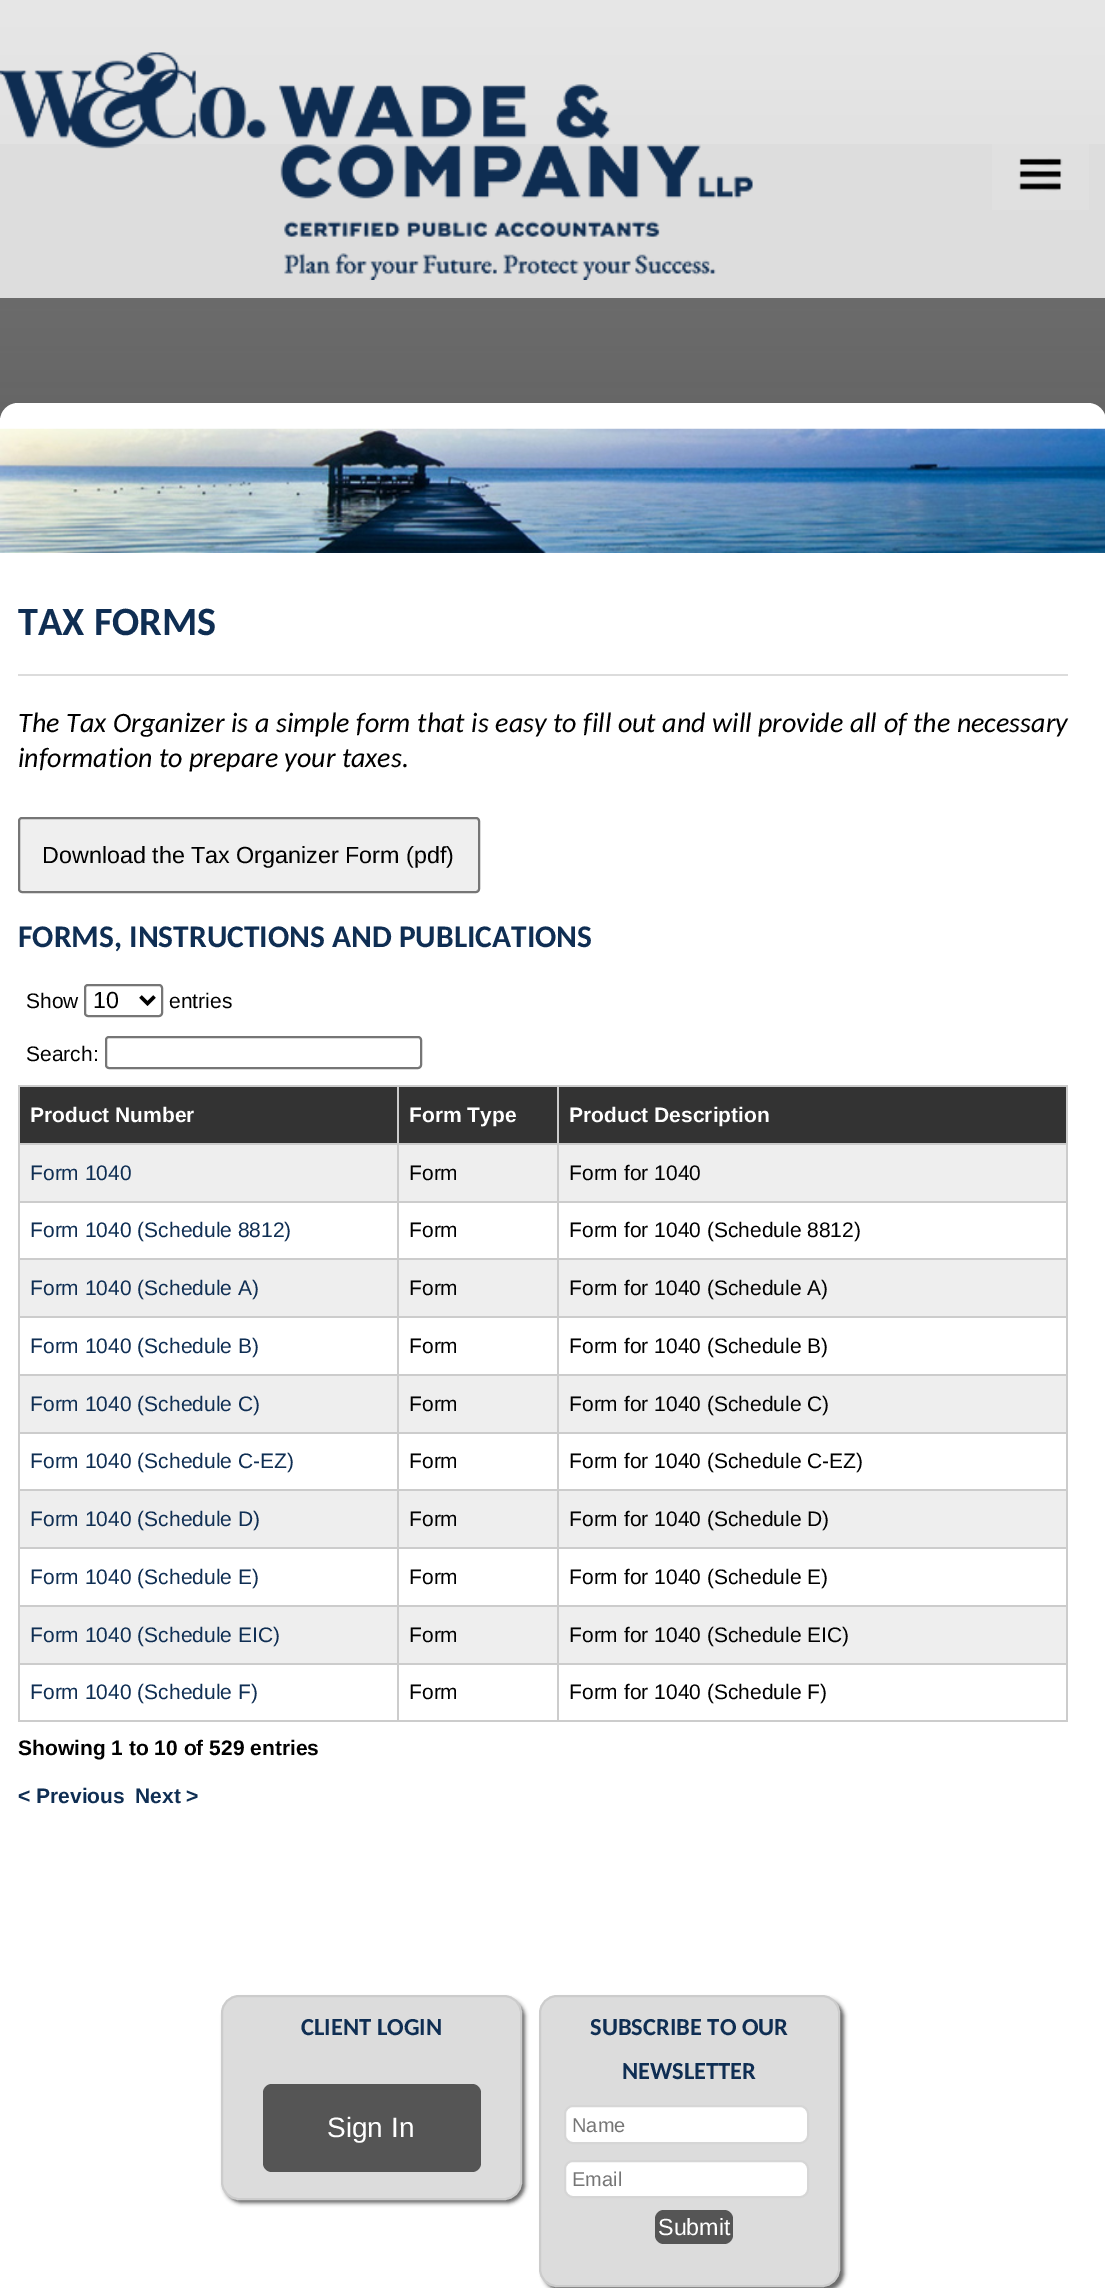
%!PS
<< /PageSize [1105 2288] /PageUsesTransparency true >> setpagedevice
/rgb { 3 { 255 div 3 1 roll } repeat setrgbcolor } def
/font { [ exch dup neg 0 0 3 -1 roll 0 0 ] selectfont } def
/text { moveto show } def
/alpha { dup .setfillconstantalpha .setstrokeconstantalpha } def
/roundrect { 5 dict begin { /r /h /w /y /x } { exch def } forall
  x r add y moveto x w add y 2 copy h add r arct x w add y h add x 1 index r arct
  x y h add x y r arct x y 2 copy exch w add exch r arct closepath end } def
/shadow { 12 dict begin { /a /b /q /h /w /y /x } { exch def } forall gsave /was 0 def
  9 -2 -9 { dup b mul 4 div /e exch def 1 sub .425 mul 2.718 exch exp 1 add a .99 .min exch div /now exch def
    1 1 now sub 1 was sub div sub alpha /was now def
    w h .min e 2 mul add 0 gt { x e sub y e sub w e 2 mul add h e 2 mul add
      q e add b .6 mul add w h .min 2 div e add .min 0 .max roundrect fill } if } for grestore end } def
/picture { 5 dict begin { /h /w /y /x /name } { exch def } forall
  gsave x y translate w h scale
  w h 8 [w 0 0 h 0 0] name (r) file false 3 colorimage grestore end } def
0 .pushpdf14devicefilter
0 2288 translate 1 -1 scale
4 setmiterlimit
255 255 255 rgb
0 0 1105 2288 rectfill
(img_01.rgb) 0 298 1105 123 picture
221 221 221 rgb
0 144 1105 154 rectfill
(img_02.rgb) 0 0 1105 144 picture
(img_03.rgb) 0 52 753 228 picture
224 224 224 rgb
992 144 97 66 rectfill
(img_04.rgb) 1018 158 45 33 picture
255 255 255 rgb
0 403 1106 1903 18 roundrect fill
(img_05.rgb) 0 428 1105 125 picture
220 220 220 rgb
18 674 1050 2 rectfill
239 239 239 rgb
19 818 460 74 3 roundrect gsave fill grestore
118 118 118 rgb
2 setlinewidth
stroke
85 985 77 31 3 roundrect stroke
0 0 0 rgb
3.5 setlinewidth
140.5 996.5 moveto 7 7 rlineto 7 -7 rlineto stroke
118 118 118 rgb
2 setlinewidth
106 1037 315 31 3 roundrect stroke
51 51 51 rgb
20 1087 377 56 rectfill
204 204 204 rgb
557 1085 511 2 rectfill
557 1143 511 2 rectfill
238 238 238 rgb
20 1145 1046 56 rectfill
204 204 204 rgb
557 1201 511 2 rectfill
557 1258 511 2 rectfill
238 238 238 rgb
20 1260 1046 56 rectfill
204 204 204 rgb
557 1316 511 2 rectfill
557 1374 511 2 rectfill
238 238 238 rgb
20 1376 1046 56 rectfill
204 204 204 rgb
557 1432 511 2 rectfill
557 1489 511 2 rectfill
238 238 238 rgb
20 1491 1046 56 rectfill
204 204 204 rgb
557 1547 511 2 rectfill
557 1605 511 2 rectfill
238 238 238 rgb
20 1607 1046 56 rectfill
204 204 204 rgb
557 1663 511 2 rectfill
1066 1663 2 59 rectfill
557 1720 511 2 rectfill
557 1663 2 59 rectfill
397 1663 161 2 rectfill
557 1605 2 59 rectfill
397 1605 161 2 rectfill
557 1547 2 60 rectfill
397 1547 161 2 rectfill
557 1489 2 60 rectfill
397 1489 161 2 rectfill
557 1432 2 59 rectfill
397 1432 161 2 rectfill
557 1374 2 59 rectfill
397 1374 161 2 rectfill
557 1316 2 60 rectfill
397 1316 161 2 rectfill
557 1258 2 60 rectfill
397 1258 161 2 rectfill
557 1201 2 59 rectfill
397 1201 161 2 rectfill
557 1143 2 59 rectfill
397 1143 161 2 rectfill
557 1085 2 60 rectfill
397 1085 161 2 rectfill
397 1720 161 2 rectfill
397 1663 2 59 rectfill
18 1663 381 2 rectfill
397 1605 2 59 rectfill
18 1605 381 2 rectfill
397 1547 2 60 rectfill
18 1547 381 2 rectfill
397 1489 2 60 rectfill
18 1489 381 2 rectfill
397 1432 2 59 rectfill
18 1432 381 2 rectfill
397 1374 2 59 rectfill
18 1374 381 2 rectfill
397 1316 2 60 rectfill
18 1316 381 2 rectfill
397 1258 2 60 rectfill
18 1258 381 2 rectfill
397 1201 2 59 rectfill
18 1201 381 2 rectfill
397 1143 2 59 rectfill
18 1143 381 2 rectfill
397 1085 2 60 rectfill
18 1085 381 2 rectfill
18 1720 381 2 rectfill
18 1663 2 59 rectfill
18 1605 2 59 rectfill
18 1547 2 60 rectfill
18 1489 2 60 rectfill
18 1432 2 59 rectfill
18 1374 2 59 rectfill
18 1316 2 60 rectfill
18 1258 2 60 rectfill
18 1201 2 59 rectfill
18 1143 2 59 rectfill
18 1085 2 60 rectfill
51 51 51 rgb
399 1087 158 56 rectfill
559 1087 507 56 rectfill
204 204 204 rgb
1066 1605 2 59 rectfill
1066 1547 2 60 rectfill
1066 1489 2 60 rectfill
1066 1432 2 59 rectfill
1066 1374 2 59 rectfill
1066 1316 2 60 rectfill
1066 1258 2 60 rectfill
1066 1201 2 59 rectfill
1066 1143 2 59 rectfill
1066 1085 2 60 rectfill
102 102 102 rgb
224 1999 301 204 18 2 1 shadow
220 220 220 rgb
222 1996 299 203 17 roundrect gsave fill grestore
204 204 204 rgb
stroke
85 85 85 rgb
263 2084 218 88 9 roundrect fill
gsave
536 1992 moveto 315 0 rlineto 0 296 rlineto -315 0 rlineto closepath 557 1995 moveto 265 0 rlineto 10 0 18 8 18 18 rcurveto 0 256 rlineto 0 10 -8 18 -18 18 rcurveto -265 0 rlineto -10 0 -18 -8 -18 -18 rcurveto 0 -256 rlineto 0 -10 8 -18 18 -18 rcurveto closepath eoclip newpath
102 102 102 rgb
543 1999 301 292 18 2 1 shadow
grestore
220 220 220 rgb
540 1996 299 290 17 roundrect gsave fill grestore
204 204 204 rgb
stroke
255 255 255 rgb
565 2106 243 37 8 roundrect gsave fill grestore
214 214 214 rgb
stroke
255 255 255 rgb
565 2161 243 36 8 roundrect gsave fill grestore
214 214 214 rgb
stroke
85 85 85 rgb
655 2210 78 34 9 roundrect fill
/Carlito-Bold 40.25 font
15 46 83 rgb
(TAX FORMS) 18 635 text
/Carlito-Italic 28 font
0 0 0 rgb
18 732 moveto 0.25 0 32 (The Tax Organizer is a simple form that is easy to fill out and will provide all of the necessary) widthshow
(information to prepare your taxes.) 18 767 text
/LiberationSans-Regular 23.3 font
(Download the Tax Organizer Form \(pdf\)) 42 863 text
/Carlito-Bold 31.5 font
15 46 83 rgb
(FORMS, INSTRUCTIONS AND PUBLICATIONS) 18 947 text
/LiberationSans-Regular 21 font
0 0 0 rgb
(Show) 26 1008 text
/LiberationSans-Regular 23.3 font
(10) 93 1008 text
/LiberationSans-Regular 21 font
(entries) 169 1008 text
(Search:) 26 1061 text
/LiberationSans-Bold 21 font
255 255 255 rgb
(Product Number) 30 1122 text
(Form Type) 409 1122 text
(Product Description) 569 1122 text
/LiberationSans-Regular 21 font
15 46 83 rgb
(Form 1040) 30 1180 text
0 0 0 rgb
(Form) 409 1180 text
(Form for 1040) 569 1180 text
15 46 83 rgb
(Form 1040 \(Schedule 8812\)) 30 1237 text
0 0 0 rgb
(Form) 409 1237 text
(Form for 1040 \(Schedule 8812\)) 569 1237 text
15 46 83 rgb
(Form 1040 \(Schedule A\)) 30 1295 text
0 0 0 rgb
(Form) 409 1295 text
(Form for 1040 \(Schedule A\)) 569 1295 text
15 46 83 rgb
(Form 1040 \(Schedule B\)) 30 1353 text
0 0 0 rgb
(Form) 409 1353 text
(Form for 1040 \(Schedule B\)) 569 1353 text
15 46 83 rgb
(Form 1040 \(Schedule C\)) 30 1411 text
0 0 0 rgb
(Form) 409 1411 text
(Form for 1040 \(Schedule C\)) 569 1411 text
15 46 83 rgb
(Form 1040 \(Schedule C-EZ\)) 30 1468 text
0 0 0 rgb
(Form) 409 1468 text
(Form for 1040 \(Schedule C-EZ\)) 569 1468 text
15 46 83 rgb
(Form 1040 \(Schedule D\)) 30 1526 text
0 0 0 rgb
(Form) 409 1526 text
(Form for 1040 \(Schedule D\)) 569 1526 text
15 46 83 rgb
(Form 1040 \(Schedule E\)) 30 1584 text
0 0 0 rgb
(Form) 409 1584 text
(Form for 1040 \(Schedule E\)) 569 1584 text
15 46 83 rgb
(Form 1040 \(Schedule EIC\)) 30 1642 text
0 0 0 rgb
(Form) 409 1642 text
(Form for 1040 \(Schedule EIC\)) 569 1642 text
15 46 83 rgb
(Form 1040 \(Schedule F\)) 30 1699 text
0 0 0 rgb
(Form) 409 1699 text
(Form for 1040 \(Schedule F\)) 569 1699 text
/LiberationSans-Bold 21 font
(Showing 1 to 10 of 529 entries) 18 1755 text
15 46 83 rgb
(< Previous) 18 1803 text
(Next >) 135 1803 text
/Carlito-Bold 24.5 font
(CLIENT LOGIN) 301 2035 text
/LiberationSans-Regular 28 font
255 255 255 rgb
(Sign In) 327 2137 text
/Carlito-Bold 24.5 font
15 46 83 rgb
(SUBSCRIBE TO OUR) 590 2035 text
(NEWSLETTER) 622 2079 text
/LiberationSans-Regular 20 font
117 117 117 rgb
(Name) 572 2132 text
(Email) 572 2186 text
/LiberationSans-Regular 23.3 font
255 255 255 rgb
(Submit) 658 2235 text
.poppdf14devicefilter showpage
